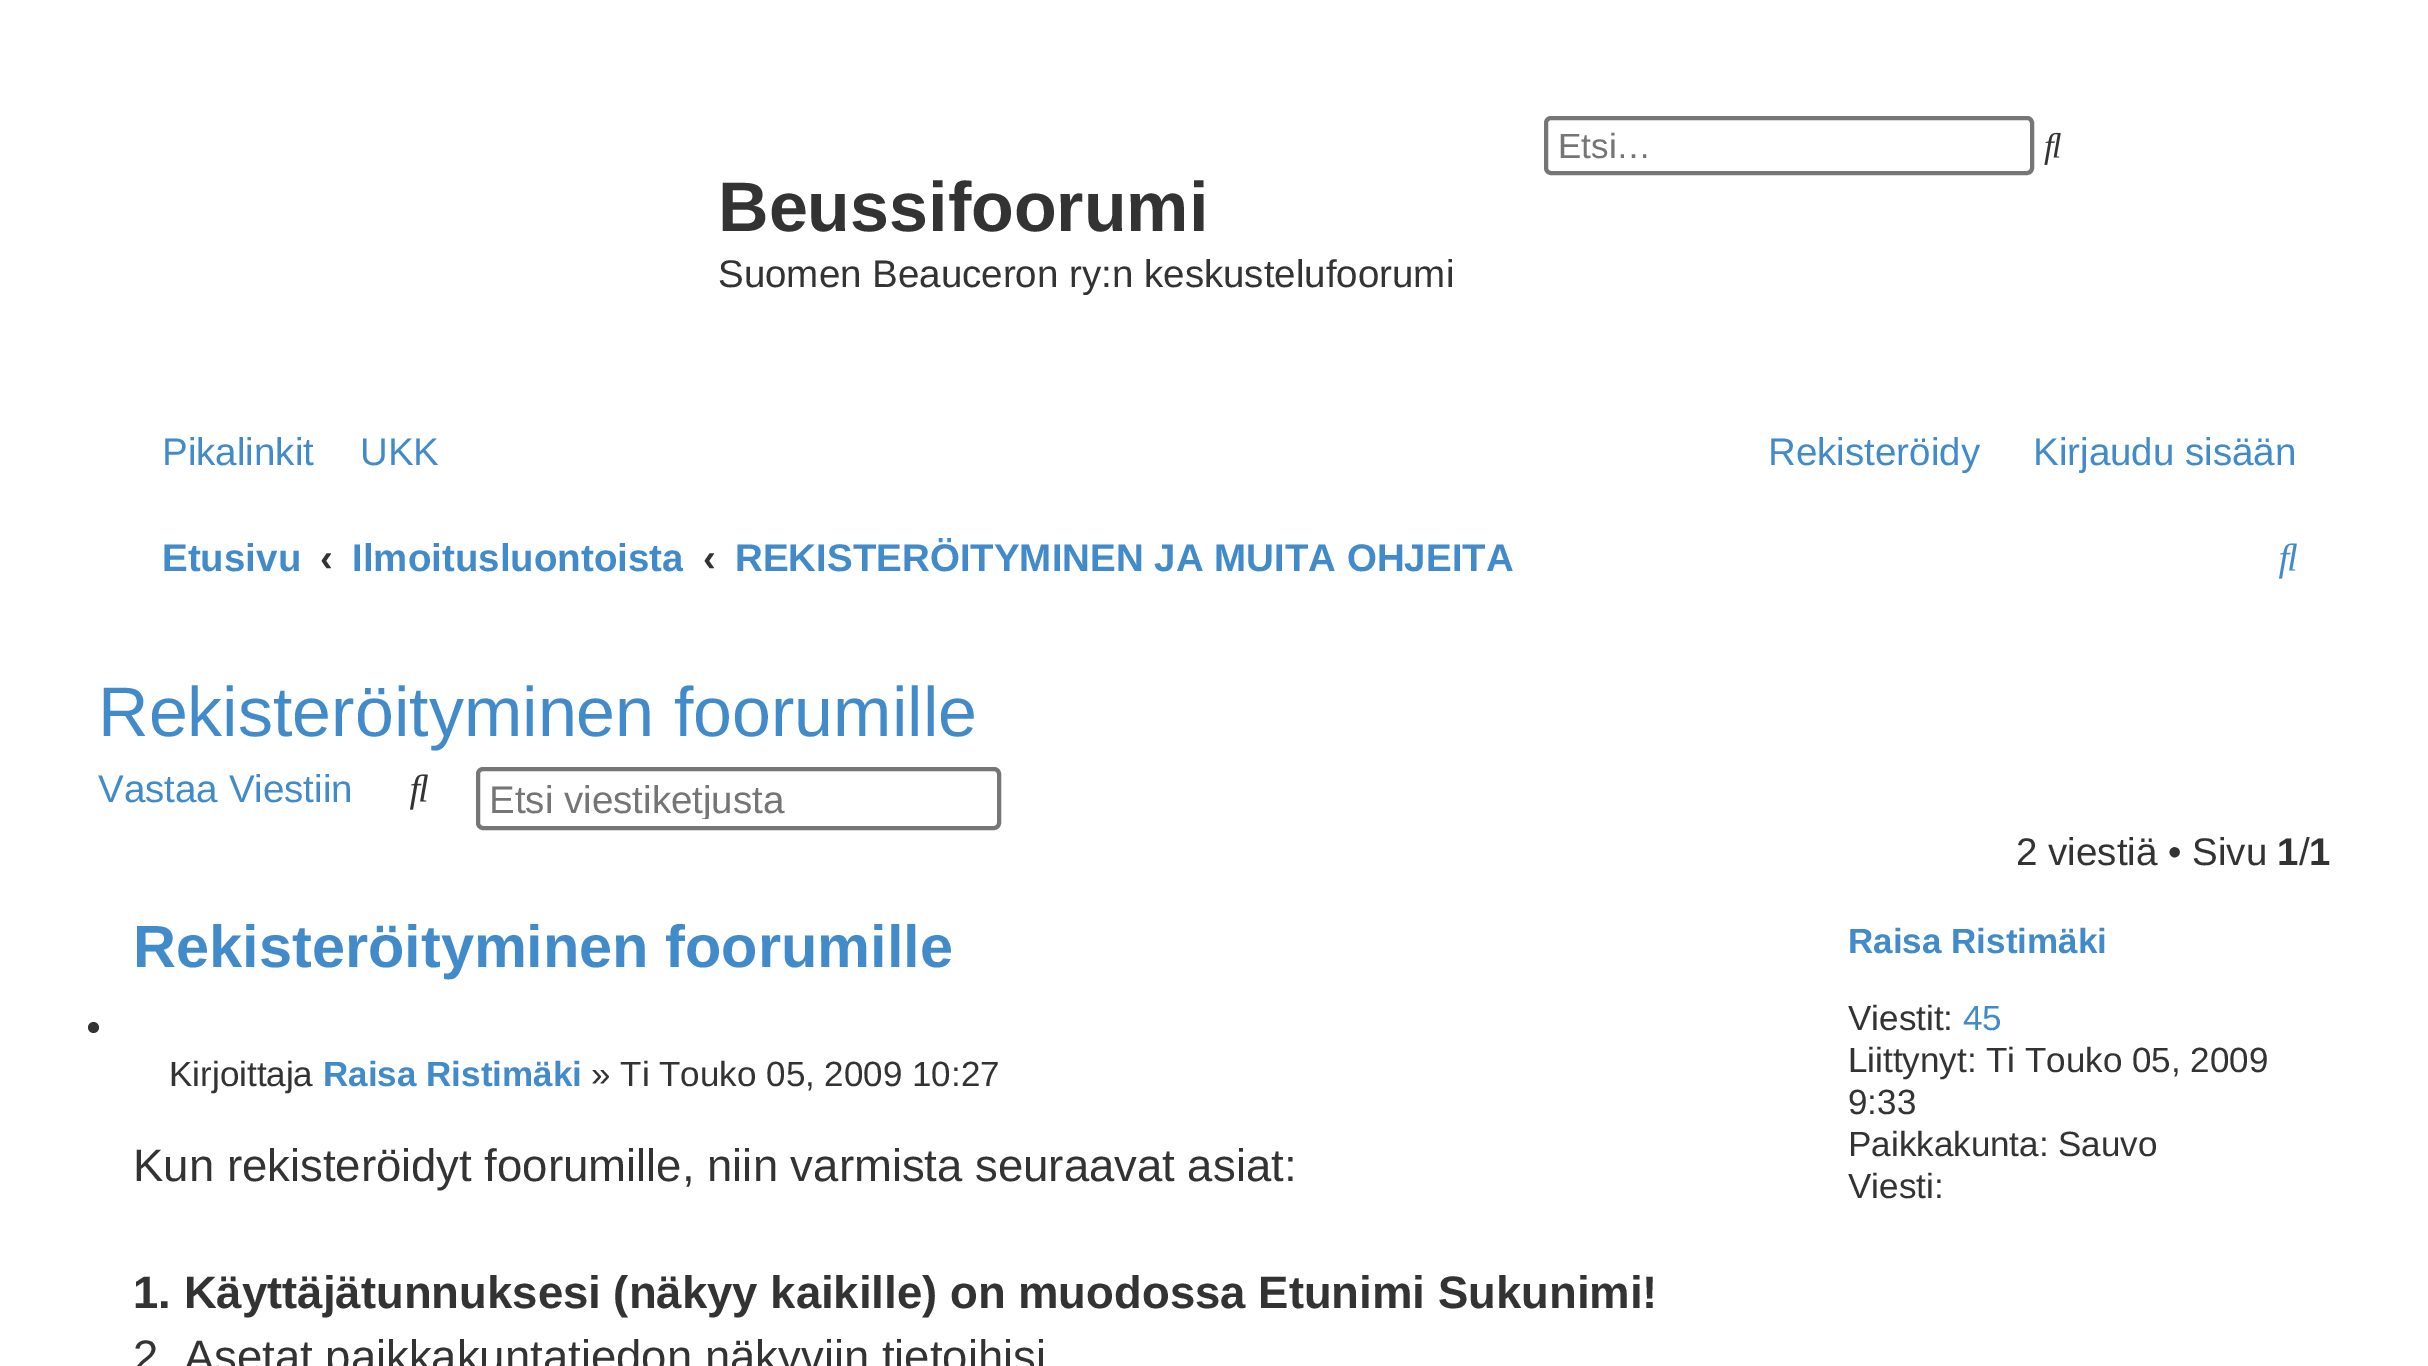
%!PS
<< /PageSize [2428 1366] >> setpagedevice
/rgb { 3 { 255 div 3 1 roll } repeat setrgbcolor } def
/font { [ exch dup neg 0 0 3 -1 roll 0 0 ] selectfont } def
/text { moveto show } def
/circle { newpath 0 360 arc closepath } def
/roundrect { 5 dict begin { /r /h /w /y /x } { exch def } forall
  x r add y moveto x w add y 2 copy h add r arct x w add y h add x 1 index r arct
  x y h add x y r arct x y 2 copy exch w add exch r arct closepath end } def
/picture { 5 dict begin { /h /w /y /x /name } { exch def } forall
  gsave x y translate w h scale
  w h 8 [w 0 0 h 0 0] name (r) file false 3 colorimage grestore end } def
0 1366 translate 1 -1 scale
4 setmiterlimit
255 255 255 rgb
0 0 2428 1366 rectfill
118 118 118 rgb
4 setlinewidth
1546 118 486 55 5 roundrect stroke
(img_01.rgb) 2044 132 17 33 picture
(img_02.rgb) 2279 543 18 36 picture
(img_03.rgb) 410 774 18 36 picture
478 769 521 59 5 roundrect stroke
51 51 51 rgb
93.5 1027.5 5.5 circle fill
/LiberationSans-Regular 35 font
117 117 117 rgb
(Etsi…) 1558 158 text
/LiberationSans-Bold 70 font
51 51 51 rgb
(Beussifoorumi) 718 231 text
/LiberationSans-Regular 38.5 font
(Suomen Beauceron ry:n keskustelufoorumi) 718 287 text
66 139 202 rgb
(Pikalinkit) 162 465 text
(UKK) 360 465 text
(Rekisteröidy) 1768 465 text
(Kirjaudu sisään) 2033 465 text
/LiberationSans-Bold 38.5 font
(Etusivu) 162 571 text
51 51 51 rgb
(‹) 320 571 text
gsave
354 515 329 84 rectclip
66 139 202 rgb
(Ilmoitusluontoista) 352 571 text
grestore
(‹) 703 571 text
66 139 202 rgb
(REKISTERÖITYMINEN JA MUITA OHJEITA) 735 571 text
/LiberationSans-Regular 70 font
(Rekisteröityminen foorumille) 98 736 text
/LiberationSans-Regular 38.5 font
(Vastaa Viestiin) 98 802 text
gsave
490 777 483 42 rectclip
117 117 117 rgb
(Etsi viestiketjusta) 489 813 text
grestore
51 51 51 rgb
(2 viestiä • Sivu) 2016 865 text
/LiberationSans-Bold 38.5 font
(1 1) 2277 865 text
/LiberationSans-Regular 38.5 font
(/) 2299 865 text
/LiberationSans-Bold 59.5 font
66 139 202 rgb
(Rekisteröityminen foorumille) 133 967 text
/LiberationSans-Regular 35 font
51 51 51 rgb
(Kirjoittaja) 169 1086 text
/LiberationSans-Bold 35 font
66 139 202 rgb
(Raisa Ristimäki) 323 1086 text
/LiberationSans-Regular 35 font
51 51 51 rgb
(» Ti Touko 05, 2009 10:27) 591 1086 text
/LiberationSans-Regular 45.5 font
(Kun rekisteröidyt foorumille, niin varmista seuraavat asiat:) 133 1181 text
/LiberationSans-Bold 45.5 font
(1. Käyttäjätunnuksesi \(näkyy kaikille\) on muodossa Etunimi Sukunimi!) 133 1308 text
/LiberationSans-Regular 45.5 font
(2. Asetat paikkakuntatiedon näkyviin tietoihisi) 133 1372 text
/LiberationSans-Bold 35 font
66 139 202 rgb
(Raisa Ristimäki) 1848 953 text
/LiberationSans-Regular 35 font
51 51 51 rgb
(Viestit:) 1848 1030 text
66 139 202 rgb
(45) 1963 1030 text
51 51 51 rgb
(Liittynyt: Ti Touko 05, 2009) 1848 1072 text
(9:33) 1848 1114 text
(Paikkakunta: Sauvo) 1848 1156 text
(Viesti:) 1848 1198 text
showpage
